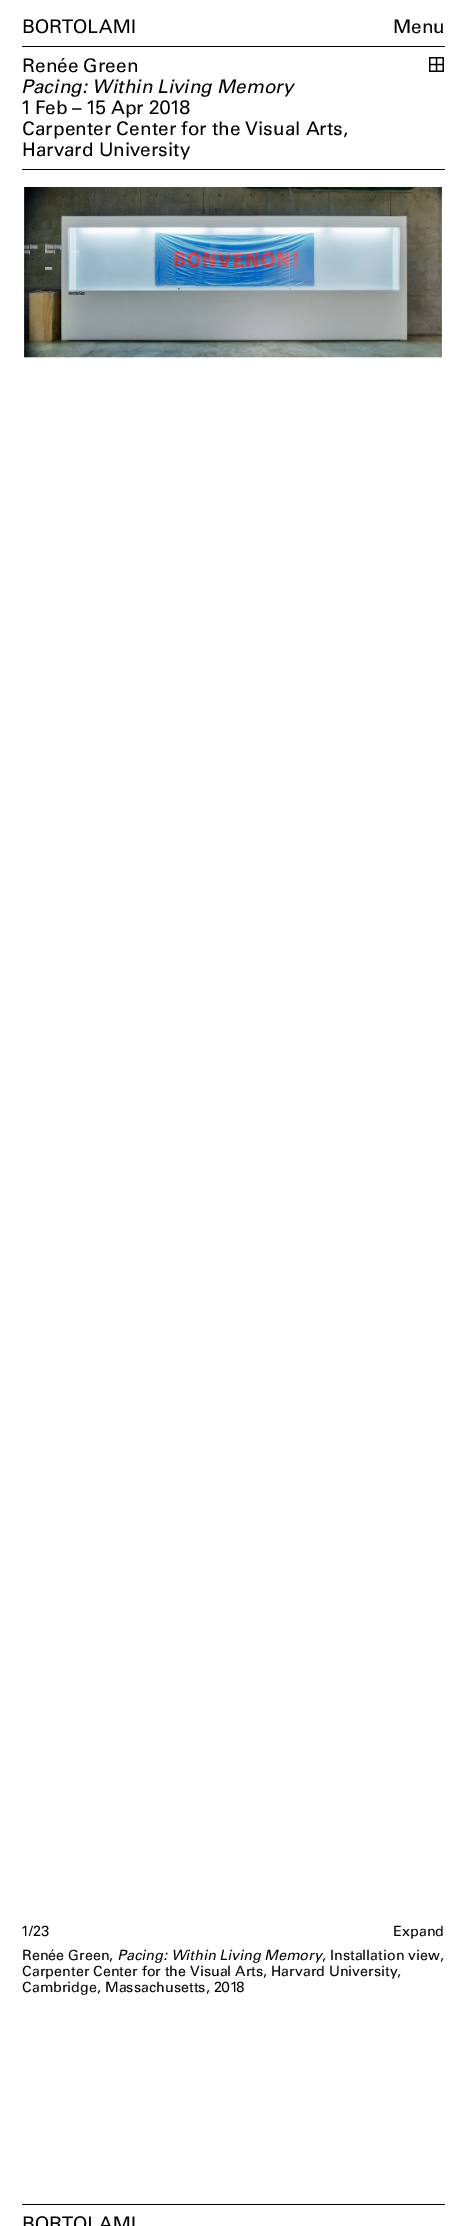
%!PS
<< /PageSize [467 2226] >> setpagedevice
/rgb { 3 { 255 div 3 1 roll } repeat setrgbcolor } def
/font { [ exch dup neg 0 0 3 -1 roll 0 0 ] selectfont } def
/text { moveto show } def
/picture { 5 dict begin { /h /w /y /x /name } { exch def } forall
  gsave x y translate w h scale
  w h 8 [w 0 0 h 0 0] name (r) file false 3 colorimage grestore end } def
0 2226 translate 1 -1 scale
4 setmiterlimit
255 255 255 rgb
0 0 467 2226 rectfill
(img_01.rgb) 23 19 112 15 picture
0 0 0 rgb
22 46 423 1 rectfill
(img_02.rgb) 429 57 15 15 picture
22 169 423 1 rectfill
(img_03.rgb) 24 187 418 171 picture
22 2204 423 1 rectfill
(img_04.rgb) 23 2216 112 10 picture
/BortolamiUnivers-Regular 18.75 font
(Menu) 393 33 text
(Renée Green) 22 72 text
/BortolamiUnivers-Italic 18.75 font
(Pacing: Within Living Memory) 22 93 text
/BortolamiUnivers-Regular 18.75 font
(1 Feb – 15 Apr 2018) 22 114 text
(Carpenter Center for the Visual Arts,) 22 135 text
(Harvard University) 22 156 text
/BortolamiUnivers-Regular 14.1 font
(1/23) 22 1936 text
(Expand) 393 1936 text
(Renée Green,) 22 1960 text
/BortolamiUnivers-Italic 14.1 font
(Pacing: Within Living Memory) 118 1960 text
/BortolamiUnivers-Regular 14.1 font
(, Installation view,) 322 1960 text
(Carpenter Center for the Visual Arts, Harvard University,) 22 1976 text
(Cambridge, Massachusetts, 2018) 22 1992 text
showpage
